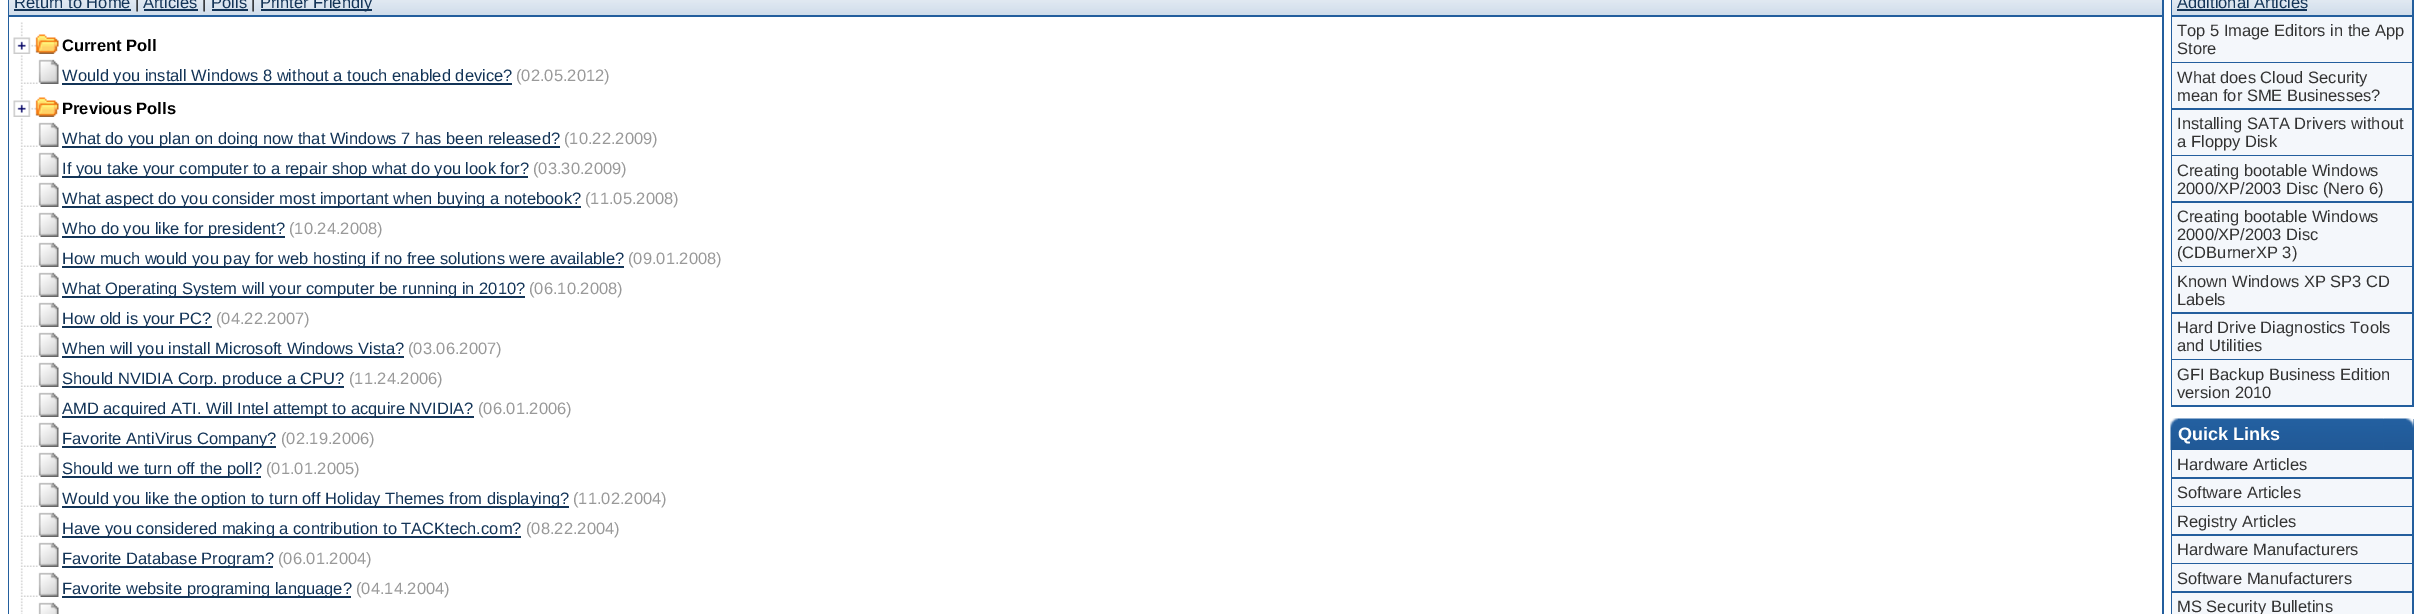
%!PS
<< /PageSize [2421 614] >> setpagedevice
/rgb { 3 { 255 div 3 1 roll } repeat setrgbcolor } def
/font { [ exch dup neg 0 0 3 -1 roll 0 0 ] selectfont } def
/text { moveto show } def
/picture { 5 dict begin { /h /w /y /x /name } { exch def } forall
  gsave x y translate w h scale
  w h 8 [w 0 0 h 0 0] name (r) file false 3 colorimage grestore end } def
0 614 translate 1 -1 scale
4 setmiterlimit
255 255 255 rgb
0 0 2421 614 rectfill
35 94 157 rgb
8 0 1 614 rectfill
(img_01.rgb) 9 0 2153 15 picture
2162 0 2 614 rectfill
9 15 2154 2 rectfill
19 52 87 rgb
14 9 117 2 rectfill
144 9 54 2 rectfill
212 9 36 2 rectfill
261 9 111 2 rectfill
(img_02.rgb) 13 22 46 32 picture
(img_03.rgb) 20 55 39 29 picture
62 83 450 2 rectfill
(img_02.rgb) 13 85 46 32 picture
(img_03.rgb) 20 118 39 29 picture
62 146 498 2 rectfill
(img_03.rgb) 20 148 39 29 picture
62 176 466 2 rectfill
(img_03.rgb) 20 178 39 29 picture
62 206 519 2 rectfill
(img_03.rgb) 20 208 39 29 picture
62 236 223 2 rectfill
(img_03.rgb) 20 238 39 29 picture
62 266 562 2 rectfill
(img_03.rgb) 20 268 39 29 picture
62 296 463 2 rectfill
(img_03.rgb) 20 298 39 29 picture
62 326 150 2 rectfill
(img_03.rgb) 20 328 39 29 picture
62 356 342 2 rectfill
(img_03.rgb) 20 358 39 29 picture
62 386 282 2 rectfill
(img_03.rgb) 20 388 39 29 picture
62 416 412 2 rectfill
(img_03.rgb) 20 418 39 29 picture
62 446 214 2 rectfill
(img_03.rgb) 20 448 39 29 picture
62 476 199 2 rectfill
(img_03.rgb) 20 478 39 29 picture
62 506 507 2 rectfill
(img_03.rgb) 20 508 39 29 picture
62 536 459 2 rectfill
(img_03.rgb) 20 538 39 29 picture
62 566 211 2 rectfill
(img_03.rgb) 20 568 39 29 picture
62 596 289 2 rectfill
(img_04.rgb) 20 598 39 16 picture
35 94 157 rgb
2171 0 1 17 rectfill
(img_05.rgb) 2172 0 240 15 picture
2412 0 2 407 rectfill
2172 15 242 2 rectfill
19 52 87 rgb
2177 9 130 2 rectfill
35 94 157 rgb
2171 62 243 1 rectfill
2171 17 2 46 rectfill
244 247 251 rgb
2172 17 240 45 rectfill
35 94 157 rgb
2171 108 243 2 rectfill
2171 63 2 47 rectfill
244 247 251 rgb
2172 63 240 45 rectfill
35 94 157 rgb
2171 155 243 1 rectfill
2171 110 2 46 rectfill
244 247 251 rgb
2172 110 240 45 rectfill
35 94 157 rgb
2171 201 243 2 rectfill
2171 156 2 47 rectfill
244 247 251 rgb
2172 156 240 45 rectfill
35 94 157 rgb
2171 266 243 1 rectfill
2171 203 2 64 rectfill
244 247 251 rgb
2172 203 240 63 rectfill
35 94 157 rgb
2171 312 243 2 rectfill
2171 267 2 47 rectfill
244 247 251 rgb
2172 267 240 45 rectfill
35 94 157 rgb
2171 359 243 1 rectfill
2171 314 2 46 rectfill
244 247 251 rgb
2172 314 240 45 rectfill
35 94 157 rgb
2171 405 243 2 rectfill
2171 360 2 47 rectfill
244 247 251 rgb
2172 360 240 45 rectfill
(img_06.rgb) 2170 418 8 32 picture
(img_07.rgb) 2178 418 206 32 picture
35 94 157 rgb
2413 419 1 31 rectfill
(img_08.rgb) 2383 418 31 32 picture
2412 450 2 164 rectfill
2171 477 243 2 rectfill
2171 450 2 29 rectfill
244 247 251 rgb
2172 450 240 27 rectfill
35 94 157 rgb
2171 506 243 1 rectfill
2171 479 2 28 rectfill
244 247 251 rgb
2172 479 240 27 rectfill
35 94 157 rgb
2171 534 243 2 rectfill
2171 507 2 29 rectfill
244 247 251 rgb
2172 507 240 27 rectfill
35 94 157 rgb
2171 563 243 1 rectfill
2171 536 2 28 rectfill
244 247 251 rgb
2172 536 240 27 rectfill
35 94 157 rgb
2171 591 243 2 rectfill
2171 564 2 29 rectfill
244 247 251 rgb
2172 564 240 27 rectfill
35 94 157 rgb
2171 593 1 21 rectfill
244 247 251 rgb
2172 593 240 21 rectfill
/LiberationSans-Regular 16.5 font
19 52 87 rgb
(Return to Home) 14 8 text
0 0 0 rgb
(|) 135 8 text
19 52 87 rgb
(Articles) 143 8 text
0 0 0 rgb
(|) 202 8 text
19 52 87 rgb
(Polls) 211 8 text
0 0 0 rgb
(|) 251 8 text
19 52 87 rgb
(Printer Friendly) 260 8 text
/LiberationSans-Bold 16.5 font
0 0 0 rgb
(Current Poll) 62 51 text
/LiberationSans-Regular 16.5 font
19 52 87 rgb
(Would you install Windows 8 without a touch enabled device?) 62 81 text
153 153 153 rgb
(\(02.05.2012\)) 516 81 text
/LiberationSans-Bold 16.5 font
0 0 0 rgb
(Previous Polls) 62 114 text
/LiberationSans-Regular 16.5 font
19 52 87 rgb
(What do you plan on doing now that Windows 7 has been released?) 62 144 text
153 153 153 rgb
(\(10.22.2009\)) 564 144 text
19 52 87 rgb
(If you take your computer to a repair shop what do you look for?) 62 174 text
153 153 153 rgb
(\(03.30.2009\)) 533 174 text
19 52 87 rgb
(What aspect do you consider most important when buying a notebook?) 62 204 text
153 153 153 rgb
(\(11.05.2008\)) 585 204 text
19 52 87 rgb
(Who do you like for president?) 62 234 text
153 153 153 rgb
(\(10.24.2008\)) 289 234 text
19 52 87 rgb
(How much would you pay for web hosting if no free solutions were available?) 62 264 text
153 153 153 rgb
(\(09.01.2008\)) 628 264 text
19 52 87 rgb
(What Operating System will your computer be running in 2010?) 62 294 text
153 153 153 rgb
(\(06.10.2008\)) 529 294 text
19 52 87 rgb
(How old is your PC?) 62 324 text
153 153 153 rgb
(\(04.22.2007\)) 216 324 text
19 52 87 rgb
(When will you install Microsoft Windows Vista?) 62 354 text
153 153 153 rgb
(\(03.06.2007\)) 408 354 text
19 52 87 rgb
(Should NVIDIA Corp. produce a CPU?) 62 384 text
153 153 153 rgb
(\(11.24.2006\)) 349 384 text
19 52 87 rgb
(AMD acquired ATI. Will Intel attempt to acquire NVIDIA?) 62 414 text
153 153 153 rgb
(\(06.01.2006\)) 478 414 text
19 52 87 rgb
(Favorite AntiVirus Company?) 62 444 text
153 153 153 rgb
(\(02.19.2006\)) 281 444 text
19 52 87 rgb
(Should we turn off the poll?) 62 474 text
153 153 153 rgb
(\(01.01.2005\)) 266 474 text
19 52 87 rgb
(Would you like the option to turn off Holiday Themes from displaying?) 62 504 text
153 153 153 rgb
(\(11.02.2004\)) 573 504 text
19 52 87 rgb
(Have you considered making a contribution to TACKtech.com?) 62 534 text
153 153 153 rgb
(\(08.22.2004\)) 526 534 text
19 52 87 rgb
(Favorite Database Program?) 62 564 text
153 153 153 rgb
(\(06.01.2004\)) 278 564 text
19 52 87 rgb
(Favorite website programing language?) 62 594 text
153 153 153 rgb
(\(04.14.2004\)) 356 594 text
19 52 87 rgb
(Additional Articles) 2177 8 text
51 51 51 rgb
(Top 5 Image Editors in the App) 2177 36 text
(Store) 2177 54 text
(What does Cloud Security) 2177 83 text
(mean for SME Businesses?) 2177 101 text
(Installing SATA Drivers without) 2177 129 text
(a Floppy Disk) 2177 147 text
(Creating bootable Windows) 2177 176 text
(2000/XP/2003 Disc \(Nero 6\)) 2177 194 text
(Creating bootable Windows) 2177 222 text
(2000/XP/2003 Disc) 2177 240 text
(\(CDBurnerXP 3\)) 2177 258 text
(Known Windows XP SP3 CD) 2177 287 text
(Labels) 2177 305 text
(Hard Drive Diagnostics Tools) 2177 333 text
(and Utilities) 2177 351 text
(GFI Backup Business Edition) 2177 380 text
(version 2010) 2177 398 text
/LiberationSans-Bold 18 font
255 255 255 rgb
(Quick Links) 2178 440 text
/LiberationSans-Regular 16.5 font
51 51 51 rgb
(Hardware Articles) 2177 470 text
(Software Articles) 2177 498 text
(Registry Articles) 2177 527 text
(Hardware Manufacturers) 2177 555 text
(Software Manufacturers) 2177 584 text
(MS Security Bulletins) 2177 612 text
showpage
